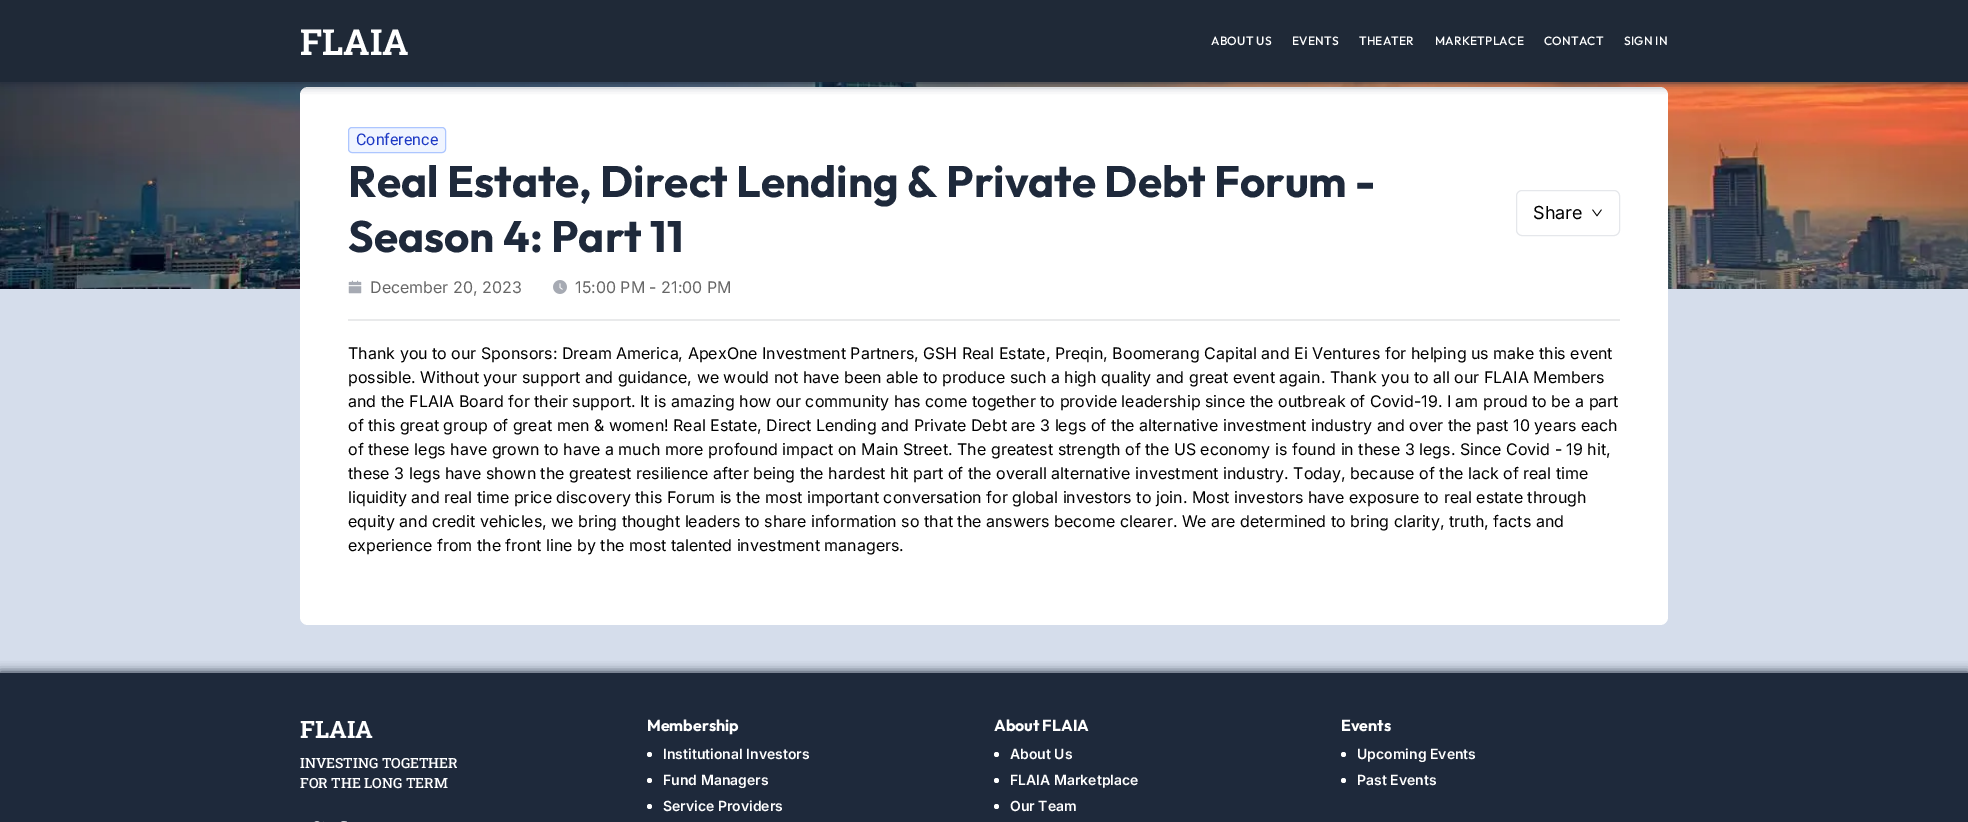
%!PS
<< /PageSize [1968 822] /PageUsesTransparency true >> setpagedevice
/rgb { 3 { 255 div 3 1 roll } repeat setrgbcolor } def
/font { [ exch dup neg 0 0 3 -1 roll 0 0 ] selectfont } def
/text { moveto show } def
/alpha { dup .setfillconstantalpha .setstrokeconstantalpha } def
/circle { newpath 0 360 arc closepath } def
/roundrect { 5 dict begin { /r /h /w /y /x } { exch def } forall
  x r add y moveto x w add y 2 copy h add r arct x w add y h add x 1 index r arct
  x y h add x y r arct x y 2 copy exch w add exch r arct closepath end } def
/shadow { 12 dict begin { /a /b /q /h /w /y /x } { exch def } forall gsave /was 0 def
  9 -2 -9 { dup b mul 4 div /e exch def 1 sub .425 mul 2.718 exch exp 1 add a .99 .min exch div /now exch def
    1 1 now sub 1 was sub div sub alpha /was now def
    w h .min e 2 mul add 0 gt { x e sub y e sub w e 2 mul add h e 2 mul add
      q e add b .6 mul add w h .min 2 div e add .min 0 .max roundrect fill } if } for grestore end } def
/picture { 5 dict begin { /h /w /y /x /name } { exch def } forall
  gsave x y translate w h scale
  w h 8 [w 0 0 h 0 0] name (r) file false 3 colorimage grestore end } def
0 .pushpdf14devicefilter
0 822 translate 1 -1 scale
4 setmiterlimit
213 221 235 rgb
0 0 1968 822 rectfill
(img_01.rgb) 0 82 1968 207 picture
255 255 255 rgb
300 87 1368 538 8 roundrect fill
30 41 59 rgb
0 1 1968 82 0 5 1 shadow
31 41 55 rgb
0 0 1968 82 rectfill
240 245 255 rgb
348.5 127.5 97 25 3.5 roundrect gsave fill grestore
173 198 255 rgb
stroke
(img_02.rgb) 348 280 14 14 picture
(img_03.rgb) 553 280 14 14 picture
229 231 235 rgb
1516.5 190.5 103 45 5.5 roundrect stroke
(img_04.rgb) 1592 209 10 8 picture
233 234 235 rgb
348 319 1272 2 rectfill
30 41 59 rgb
0 672 1968 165 0 5 1 shadow
0 673 1968 149 rectfill
(img_05.rgb) 314 821 10 1 picture
(img_06.rgb) 341 821 6 1 picture
255 255 255 rgb
649.5 754.5 2.5 circle fill
649.5 780.5 2.5 circle fill
649.5 806.5 2.5 circle fill
996.5 754.5 2.5 circle fill
996.5 780.5 2.5 circle fill
996.5 806.5 2.5 circle fill
1343.5 754.5 2.5 circle fill
1343.5 780.5 2.5 circle fill
/RobotoSlab-Bold 36 font
(FLAIA) 300 55 text
/Outfit-Medium 12 font
1211 45 moveto 0.25 0 (ABOUT US) ashow
1292 45 moveto 0.25 0 (EVENTS) ashow
1359 45 moveto 0.25 0 (THEATER) ashow
1435 45 moveto 0.25 0 (MARKETPLACE) ashow
1544 45 moveto 0.25 0 (CONTACT) ashow
1624 45 moveto 0.25 0 (SIGN IN) ashow
/Roboto-Regular 16 font
29 57 196 rgb
(Conference) 356 145 text
/Outfit-Bold 44 font
30 41 59 rgb
(Real Estate, Direct Lending & Private Debt Forum -) 348 197 text
(Season 4: Part 11) 348 252 text
/Inter-Regular 16 font
102 102 102 rgb
(December 20, 2023) 370 293 text
(15:00 PM - 21:00 PM) 575 293 text
/Inter-Regular 18 font
0 0 0 rgb
(Share) 1533 219 text
/Inter-Regular 16 font
(Thank you to our Sponsors: Dream America, ApexOne Investment Partners, GSH Real Estate, Preqin, Boomerang Capital and Ei Ventures for helping us make this event) 348 359 text
(possible. Without your support and guidance, we would not have been able to produce such a high quality and great event again. Thank you to all our FLAIA Members) 348 383 text
(and the FLAIA Board for their support. It is amazing how our community has come together to provide leadership since the outbreak of Covid-19. I am proud to be a part) 348 407 text
(of this great group of great men & women! Real Estate, Direct Lending and Private Debt are 3 legs of the alternative investment industry and over the past 10 years each) 348 431 text
(of these legs have grown to have a much more profound impact on Main Street. The greatest strength of the US economy is found in these 3 legs. Since Covid - 19 hit,) 348 455 text
(these 3 legs have shown the greatest resilience after being the hardest hit part of the overall alternative investment industry. Today, because of the lack of real time) 348 479 text
(liquidity and real time price discovery this Forum is the most important conversation for global investors to join. Most investors have exposure to real estate through) 348 503 text
(equity and credit vehicles, we bring thought leaders to share information so that the answers become clearer. We are determined to bring clarity, truth, facts and) 348 527 text
(experience from the front line by the most talented investment managers.) 348 551 text
/RobotoSlab-Bold 24 font
255 255 255 rgb
(FLAIA) 300 738 text
/RobotoSlab-Medium 14 font
(INVESTING TOGETHER) 300 768 text
(FOR THE LONG TERM) 300 788 text
/Outfit-Bold 16 font
(Membership) 647 731 text
/Inter-SemiBold 14 font
(Institutional Investors) 663 759 text
(Fund Managers) 663 785 text
(Service Providers) 663 811 text
/Outfit-Bold 16 font
(About FLAIA) 994 731 text
/Inter-SemiBold 14 font
(About Us) 1010 759 text
(FLAIA Marketplace) 1010 785 text
(Our Team) 1010 811 text
/Outfit-Bold 16 font
(Events) 1341 731 text
/Inter-SemiBold 14 font
(Upcoming Events) 1357 759 text
(Past Events) 1357 785 text
.poppdf14devicefilter showpage
